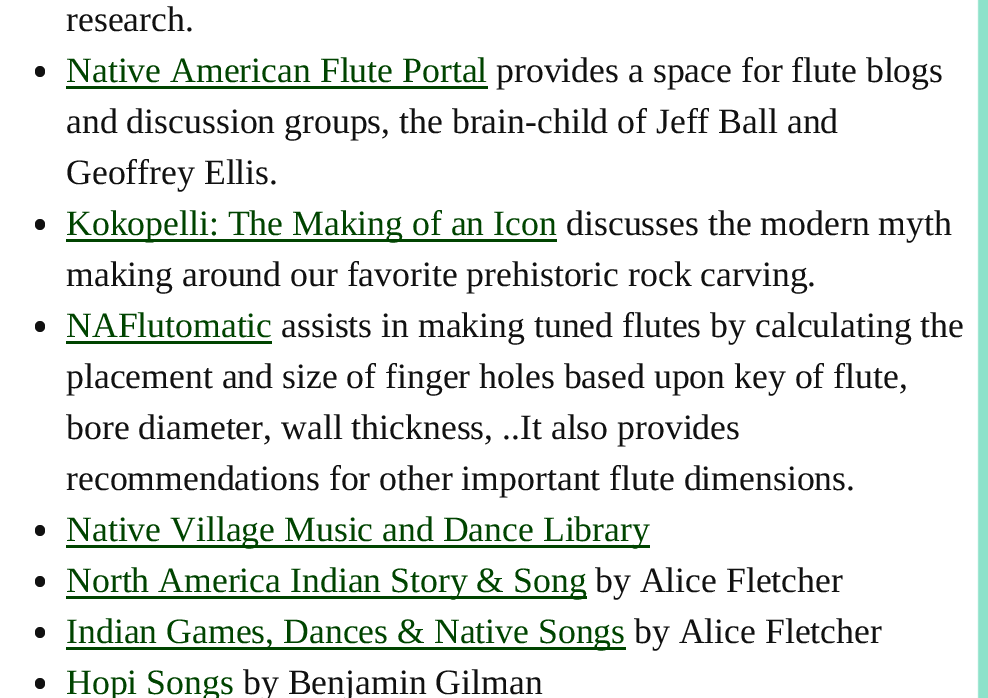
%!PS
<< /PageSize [988 698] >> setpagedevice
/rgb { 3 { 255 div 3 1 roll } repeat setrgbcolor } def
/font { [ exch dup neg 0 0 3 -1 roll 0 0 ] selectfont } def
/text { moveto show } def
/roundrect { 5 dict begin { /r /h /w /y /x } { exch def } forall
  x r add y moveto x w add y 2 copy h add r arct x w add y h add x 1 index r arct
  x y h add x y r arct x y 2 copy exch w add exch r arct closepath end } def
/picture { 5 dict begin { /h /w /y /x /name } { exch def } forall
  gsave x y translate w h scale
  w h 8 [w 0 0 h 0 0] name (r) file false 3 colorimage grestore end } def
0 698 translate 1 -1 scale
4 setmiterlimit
255 255 255 rgb
0 0 988 698 rectfill
(img_01.rgb) 977 0 11 698 picture
17 17 17 rgb
35 66 10 11 5 roundrect fill
0 68 0 rgb
66 86 422 3 rectfill
17 17 17 rgb
35 219 10 11 5 roundrect fill
0 68 0 rgb
66 239 491 3 rectfill
17 17 17 rgb
35 321 10 11 5 roundrect fill
0 68 0 rgb
66 341 206 3 rectfill
17 17 17 rgb
35 525 10 11 5 roundrect fill
0 68 0 rgb
66 545 584 3 rectfill
17 17 17 rgb
35 576 10 11 5 roundrect fill
0 68 0 rgb
66 596 521 3 rectfill
17 17 17 rgb
35 627 10 11 5 roundrect fill
0 68 0 rgb
66 647 560 3 rectfill
17 17 17 rgb
35 678 10 11 5 roundrect fill
/LiberationSerif-Regular 35.7 font
(research.) 66 31 text
0 68 0 rgb
(Native American Flute Portal) 66 82 text
17 17 17 rgb
(provides a space for flute blogs) 496 82 text
(and discussion groups, the brain-child of Jeff Ball and) 66 133 text
(Geoffrey Ellis.) 66 184 text
0 68 0 rgb
(Kokopelli: The Making of an Icon) 66 235 text
17 17 17 rgb
(discusses the modern myth) 566 235 text
(making around our favorite prehistoric rock carving.) 66 286 text
0 68 0 rgb
(NAFlutomatic) 66 337 text
17 17 17 rgb
(assists in making tuned flutes by calculating the) 281 337 text
(placement and size of finger holes based upon key of flute,) 66 388 text
(bore diameter, wall thickness, ..It also provides) 66 439 text
(recommendations for other important flute dimensions.) 66 490 text
0 68 0 rgb
(Native Village Music and Dance Library) 66 541 text
(North America Indian Story & Song) 66 592 text
17 17 17 rgb
(by Alice Fletcher) 595 592 text
0 68 0 rgb
(Indian Games, Dances & Native Songs) 66 643 text
17 17 17 rgb
(by Alice Fletcher) 634 643 text
0 68 0 rgb
(Hopi Songs) 66 694 text
17 17 17 rgb
(by Benjamin Gilman) 243 694 text
showpage
